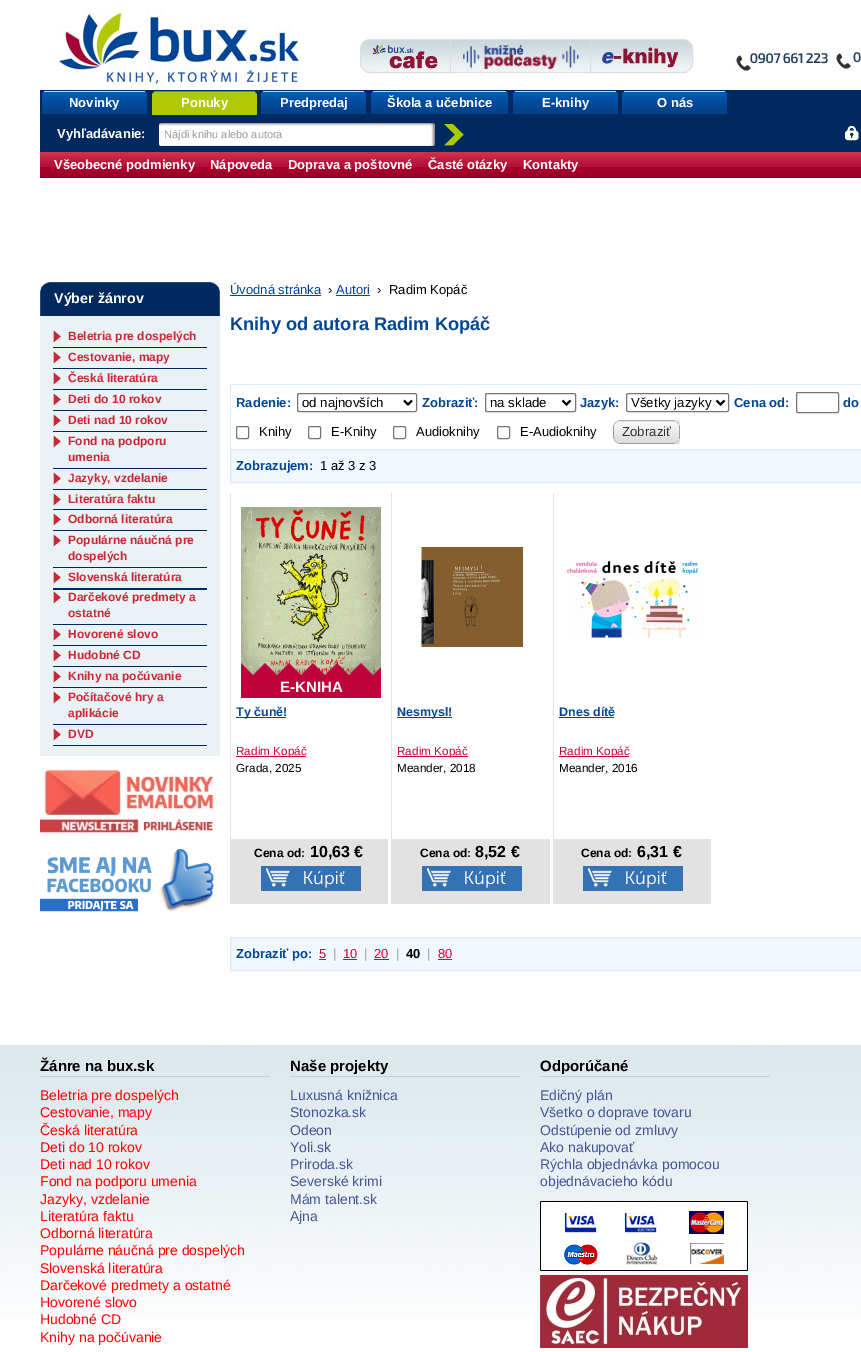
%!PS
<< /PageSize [861 1352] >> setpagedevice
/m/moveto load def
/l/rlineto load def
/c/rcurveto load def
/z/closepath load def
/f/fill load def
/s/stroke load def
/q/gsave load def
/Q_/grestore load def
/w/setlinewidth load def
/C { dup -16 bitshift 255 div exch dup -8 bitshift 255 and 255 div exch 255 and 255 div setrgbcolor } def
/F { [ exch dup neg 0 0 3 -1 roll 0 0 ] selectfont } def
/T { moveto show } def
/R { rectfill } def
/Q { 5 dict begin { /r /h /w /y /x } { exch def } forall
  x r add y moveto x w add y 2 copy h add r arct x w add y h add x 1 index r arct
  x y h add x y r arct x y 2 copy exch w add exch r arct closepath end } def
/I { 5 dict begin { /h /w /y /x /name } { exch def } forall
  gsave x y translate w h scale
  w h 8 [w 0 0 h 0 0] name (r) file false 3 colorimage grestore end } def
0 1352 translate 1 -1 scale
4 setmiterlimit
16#FFFFFF C
0 0 861 1352 R
(1.rgb) 50 10 256 79 I
(2.rgb) 360 40 90 33 I
16#DFDFDF C
370 39.5 m 80.5 0 l 0 33 l -80.5 0 l -5 0 -9.5 -4.5 -9.5 -9.5 c 0 -14 l 0 -5 4.5 -9.5 9.5 -9.5 c z s
(3.rgb) 372 44 66 25 I
(4.rgb) 451 40 139 32 I
451 39 139 1 R
451 72 139 1 R
(5.rgb) 463 45 117 25 I
(6.rgb) 591 40 102 33 I
590.5 39.5 m 92.5 0 l 5 0 9.5 4.5 9.5 9.5 c 0 14 l 0 5 -4.5 9.5 -9.5 9.5 c -92.5 0 l z s
(7.rgb) 602 47 77 21 I
(8.rgb) 734 48 127 24 I
16#002960 C
40 90 821 62 R
(9.rgb) 42 92 105 23 I
16#D1D1D1 C
44 91 101 1 R
/LiberationSans-Bold 13 F
16#FFFFFF C
(Novinky) 69 107 T
16#AFC906 C
156 92 m 97 0 l 2 0 4 1 4 3 c 0 20 l -105 0 l 0 -20 l 0 -2 2 -3 4 -3 c z f
16#4C8AD5 C
154 91 101 1 R
16#FFFFFF C
(Ponuky) 181 107 T
(9.rgb) 261 92 105 23 I
16#D1D1D1 C
263 91 101 1 R
16#FFFFFF C
(Predpredaj) 280 107 T
(10.rgb) 371 92 137 23 I
16#D1D1D1 C
373 91 133 1 R
16#FFFFFF C
(Škola a učebnice) 387 107 T
(9.rgb) 513 92 105 23 I
16#D1D1D1 C
515 91 101 1 R
16#FFFFFF C
(E-knihy) 542 107 T
(9.rgb) 622 92 105 23 I
16#D1D1D1 C
624 91 101 1 R
16#FFFFFF C
(O nás) 657 107 T
(Vyhľadávanie:) 57 138 T
(11.rgb) 159 123 276 23 I
/LiberationSans-Regular 11 F
16#999999 C
(Nájdi knihu alebo autora) 164 138 T
(12.rgb) 444 124 20 22 I
(13.rgb) 845 126 14 15 I
(14.rgb) 40 152 821 26 I
/LiberationSans-Bold 13 F
16#FFFFFF C
(Všeobecné podmienky) 54 169 T
(Nápoveda) 210 169 T
(Doprava a poštovné) 288 169 T
(Časté otázky) 428 169 T
(Kontakty) 523 169 T
(15.rgb) 40 282 171 34 I
(16.rgb) 211 282 9 34 I
/LiberationSans-Bold 14.25 F
(Výber žánrov) 54 303 T
16#EBF2F5 C
40 316 180 440 R
16#002861 C
53 347 154 1 R
(17.rgb) 53 330 8 13 I
/LiberationSans-Bold 12 F
16#C82838 C
(Beletria pre dospelých) 68 340 T
16#002861 C
53 368 154 1 R
(17.rgb) 53 351 8 13 I
16#C82838 C
(Cestovanie, mapy) 68 361 T
16#002861 C
53 389 154 1 R
(17.rgb) 53 372 8 13 I
16#C82838 C
(Česká literatúra) 68 382 T
16#002861 C
53 410 154 1 R
(17.rgb) 53 393 8 13 I
16#C82838 C
(Deti do 10 rokov) 68 403 T
16#002861 C
53 431 154 1 R
(17.rgb) 53 414 8 13 I
16#C82838 C
(Deti nad 10 rokov) 68 424 T
16#002861 C
53 468 154 1 R
(17.rgb) 53 435 8 13 I
16#C82838 C
(Fond na podporu) 68 445 T
(umenia) 68 461 T
16#002861 C
53 489 154 1 R
(17.rgb) 53 472 8 13 I
16#C82838 C
(Jazyky, vzdelanie) 68 482 T
16#002861 C
53 509 154 1 R
(17.rgb) 53 493 8 13 I
16#C82838 C
(Literatúra faktu) 68 503 T
16#002861 C
53 530 154 1 R
(17.rgb) 53 513 8 13 I
16#C82838 C
(Odborná literatúra) 68 523 T
16#002861 C
53 567 154 1 R
(17.rgb) 53 534 8 13 I
16#C82838 C
(Populárne náučná pre) 68 544 T
(dospelých) 68 560 T
(17.rgb) 53 571 8 13 I
(Slovenská literatúra) 68 581 T
16#002861 C
53 588 154 2 R
53 624 154 1 R
(17.rgb) 53 591 8 13 I
16#C82838 C
(Darčekové predmety a) 68 601 T
(ostatné) 68 617 T
16#002861 C
53 645 154 1 R
(17.rgb) 53 628 8 13 I
16#C82838 C
(Hovorené slovo) 68 638 T
16#002861 C
53 666 154 1 R
(17.rgb) 53 649 8 13 I
16#C82838 C
(Hudobné CD) 68 659 T
16#002861 C
53 687 154 1 R
(17.rgb) 53 670 8 13 I
16#C82838 C
(Knihy na počúvanie) 68 680 T
16#002861 C
53 724 154 1 R
(17.rgb) 53 691 8 13 I
16#C82838 C
(Počítačové hry a) 68 701 T
(aplikácie) 68 717 T
16#002861 C
53 745 154 1 R
(17.rgb) 53 728 8 13 I
16#C82838 C
(DVD) 68 738 T
(18.rgb) 40 766 175 69 I
(19.rgb) 40 849 174 63 I
/LiberationSans-Regular 13 F
16#034694 C
(Úvodná stránka) 230 294 T
230 295 91 1 R
16#000000 C
(›) 328 294 T
16#034694 C
(Autori) 336 294 T
336 295 34 1 R
16#000000 C
(›) 377 294 T
(Radim Kopáč) 389 294 T
/LiberationSans-Bold 18.25 F
16#034694 C
(Knihy od autora Radim Kopáč) 230 330 T
16#D9EAFF C
230 384 631 1 R
230 384 1 65 R
/LiberationSans-Bold 13 F
16#034694 C
(Radenie:) 236 407 T
16#767676 C
297.5 393.5 119 18 1.5 Q s
16#000000 C
2 w
404 400.5 m 4 4 l 4 -4 l s
/LiberationSans-Regular 13.25 F
(od najnovších) 302 407 T
/LiberationSans-Bold 13 F
16#034694 C
(Zobraziť:) 422 407 T
16#767676 C
1 w
485.5 393.5 90 18 1.5 Q s
16#000000 C
2 w
562.5 400.5 m 4 4 l 4 -4 l s
/LiberationSans-Regular 13.25 F
(na sklade) 490 407 T
/LiberationSans-Bold 13 F
16#034694 C
(Jazyk:) 580 407 T
16#767676 C
1 w
626.5 393.5 102 18 1.5 Q s
16#000000 C
2 w
716.5 400.5 m 4 4 l 4 -4 l s
/LiberationSans-Regular 13.25 F
(Všetky jazyky) 631 407 T
/LiberationSans-Bold 13 F
16#034694 C
(Cena od:) 734 407 T
16#767676 C
1 w
796.5 392.5 42 20 1.5 Q s
16#034694 C
(do) 843 407 T
16#767676 C
236.5 426.5 12 12 1.5 Q s
/LiberationSans-Regular 13 F
16#000000 C
(Knihy) 259 436 T
16#767676 C
308.5 426.5 12 12 1.5 Q s
16#000000 C
(E-Knihy) 331 436 T
16#767676 C
393.5 426.5 12 12 1.5 Q s
16#000000 C
(Audioknihy) 416 436 T
16#767676 C
497.5 426.5 12 12 1.5 Q s
16#000000 C
(E-Audioknihy) 520 436 T
(20.rgb) 613 420 61 24 I
(21.rgb) 674 420 6 24 I
/LiberationSans-Regular 13.25 F
16#333333 C
(Zobraziť) 622 436 T
16#F0F7FF C
230.5 449.5 m 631 0 l 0 33 l -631 0 l z q f Q_
16#D9EAFF C
s
/LiberationSans-Bold 13 F
16#034694 C
(Zobrazujem:) 236 470 T
/LiberationSans-Regular 13 F
16#000000 C
(1 až 3 z 3) 320 470 T
16#E2E2E2 C
230 493 1 411 R
(22.rgb) 241 507 140 168 I
(23.rgb) 241 663 140 35 I
/LiberationSans-Bold 15 F
16#FFFFFF C
(E-KNIHA) 280 692 T
16#034694 C
236 717 50 1 R
/LiberationSans-Bold 12.5 F
(Ty čuně!) 236 716 T
16#CC0033 C
236 756 70 1 R
/LiberationSans-Regular 11.75 F
(Radim Kopáč) 236 755 T
16#000000 C
(Grada, 2025) 236 772 T
16#E2E2E2 C
231 839 157 65 R
/LiberationSans-Bold 12 F
16#000000 C
(Cena od:) 254 857 T
/LiberationSans-Bold 16 F
(10,63 €) 310 857 T
(24.rgb) 261 866 100 25 I
16#E2E2E2 C
391 493 1 411 R
(25.rgb) 418 547 106 100 I
16#034694 C
397 717 55 1 R
/LiberationSans-Bold 12.5 F
(Nesmysl!) 397 716 T
16#CC0033 C
397 756 71 1 R
/LiberationSans-Regular 11.75 F
(Radim Kopáč) 397 755 T
16#000000 C
(Meander, 2018) 397 772 T
16#E2E2E2 C
392 839 158 65 R
/LiberationSans-Bold 12 F
16#000000 C
(Cena od:) 420 857 T
/LiberationSans-Bold 16 F
(8,52 €) 475 857 T
(24.rgb) 422 866 100 25 I
16#E2E2E2 C
553 493 1 411 R
(26.rgb) 564 559 136 80 I
/LiberationSans-Bold 12.5 F
16#034694 C
(Dnes dítě) 559 716 T
559 717 55 1 R
16#CC0033 C
559 756 70 1 R
/LiberationSans-Regular 11.75 F
(Radim Kopáč) 559 755 T
16#000000 C
(Meander, 2016) 559 772 T
16#E2E2E2 C
554 839 157 65 R
/LiberationSans-Bold 12 F
16#000000 C
(Cena od:) 581 857 T
/LiberationSans-Bold 16 F
(6,31 €) 637 857 T
(24.rgb) 583 866 100 25 I
16#F0F7FF C
230.5 937.5 m 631 0 l 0 33 l -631 0 l z q f Q_
16#D9EAFF C
s
/LiberationSans-Bold 13 F
16#034694 C
(Zobraziť po:) 236 958 T
/LiberationSans-Regular 13 F
16#CC0033 C
(5) 319 958 T
319 959 7 1 R
16#999999 C
(|) 333 958 T
16#CC0033 C
(10) 343 958 T
343 959 14 1 R
16#999999 C
(|) 364 958 T
16#CC0033 C
(20) 374 958 T
374 959 15 1 R
16#999999 C
(|) 396 958 T
/LiberationSans-Bold 13 F
16#000000 C
(40) 406 958 T
/LiberationSans-Regular 13 F
16#999999 C
(|) 427 958 T
16#CC0033 C
(80) 438 958 T
438 959 14 1 R
(27.rgb) 0 1045 861 273 I
16#CCCCCC C
40 1076 230 1 R
/LiberationSans-Bold 15 F
16#000000 C
(Žánre na bux.sk) 40 1071 T
/LiberationSans-Regular 14 F
16#FF0000 C
(Beletria pre dospelých) 40 1100 T
(Cestovanie, mapy) 40 1117 T
(Česká literatúra) 40 1135 T
(Deti do 10 rokov) 40 1152 T
(Deti nad 10 rokov) 40 1169 T
(Fond na podporu umenia) 40 1186 T
(Jazyky, vzdelanie) 40 1204 T
(Literatúra faktu) 40 1221 T
(Odborná literatúra) 40 1238 T
(Populárne náučná pre dospelých) 40 1255 T
(Slovenská literatúra) 40 1273 T
(Darčekové predmety a ostatné) 40 1290 T
(Hovorené slovo) 40 1307 T
(Hudobné CD) 40 1324 T
(Knihy na počúvanie) 40 1342 T
16#CCCCCC C
290 1076 230 1 R
/LiberationSans-Bold 15 F
16#000000 C
(Naše projekty) 290 1071 T
/LiberationSans-Regular 14 F
16#455497 C
(Luxusná knižnica) 290 1100 T
(Stonozka.sk) 290 1117 T
(Odeon) 290 1135 T
(Yoli.sk) 290 1152 T
(Priroda.sk) 290 1169 T
(Severské krimi) 290 1186 T
(Mám talent.sk) 290 1204 T
(Ajna) 290 1221 T
16#CCCCCC C
540 1076 230 1 R
/LiberationSans-Bold 15 F
16#000000 C
(Odporúčané) 540 1071 T
/LiberationSans-Regular 14 F
16#455497 C
(Edičný plán) 540 1100 T
(Všetko o doprave tovaru) 540 1117 T
(Odstúpenie od zmluvy) 540 1135 T
(Ako nakupovať) 540 1152 T
(Rýchla objednávka pomocou) 540 1169 T
(objednávacieho kódu) 540 1186 T
(28.rgb) 540 1201 208 70 I
(29.rgb) 540 1275 208 73 I
showpage
